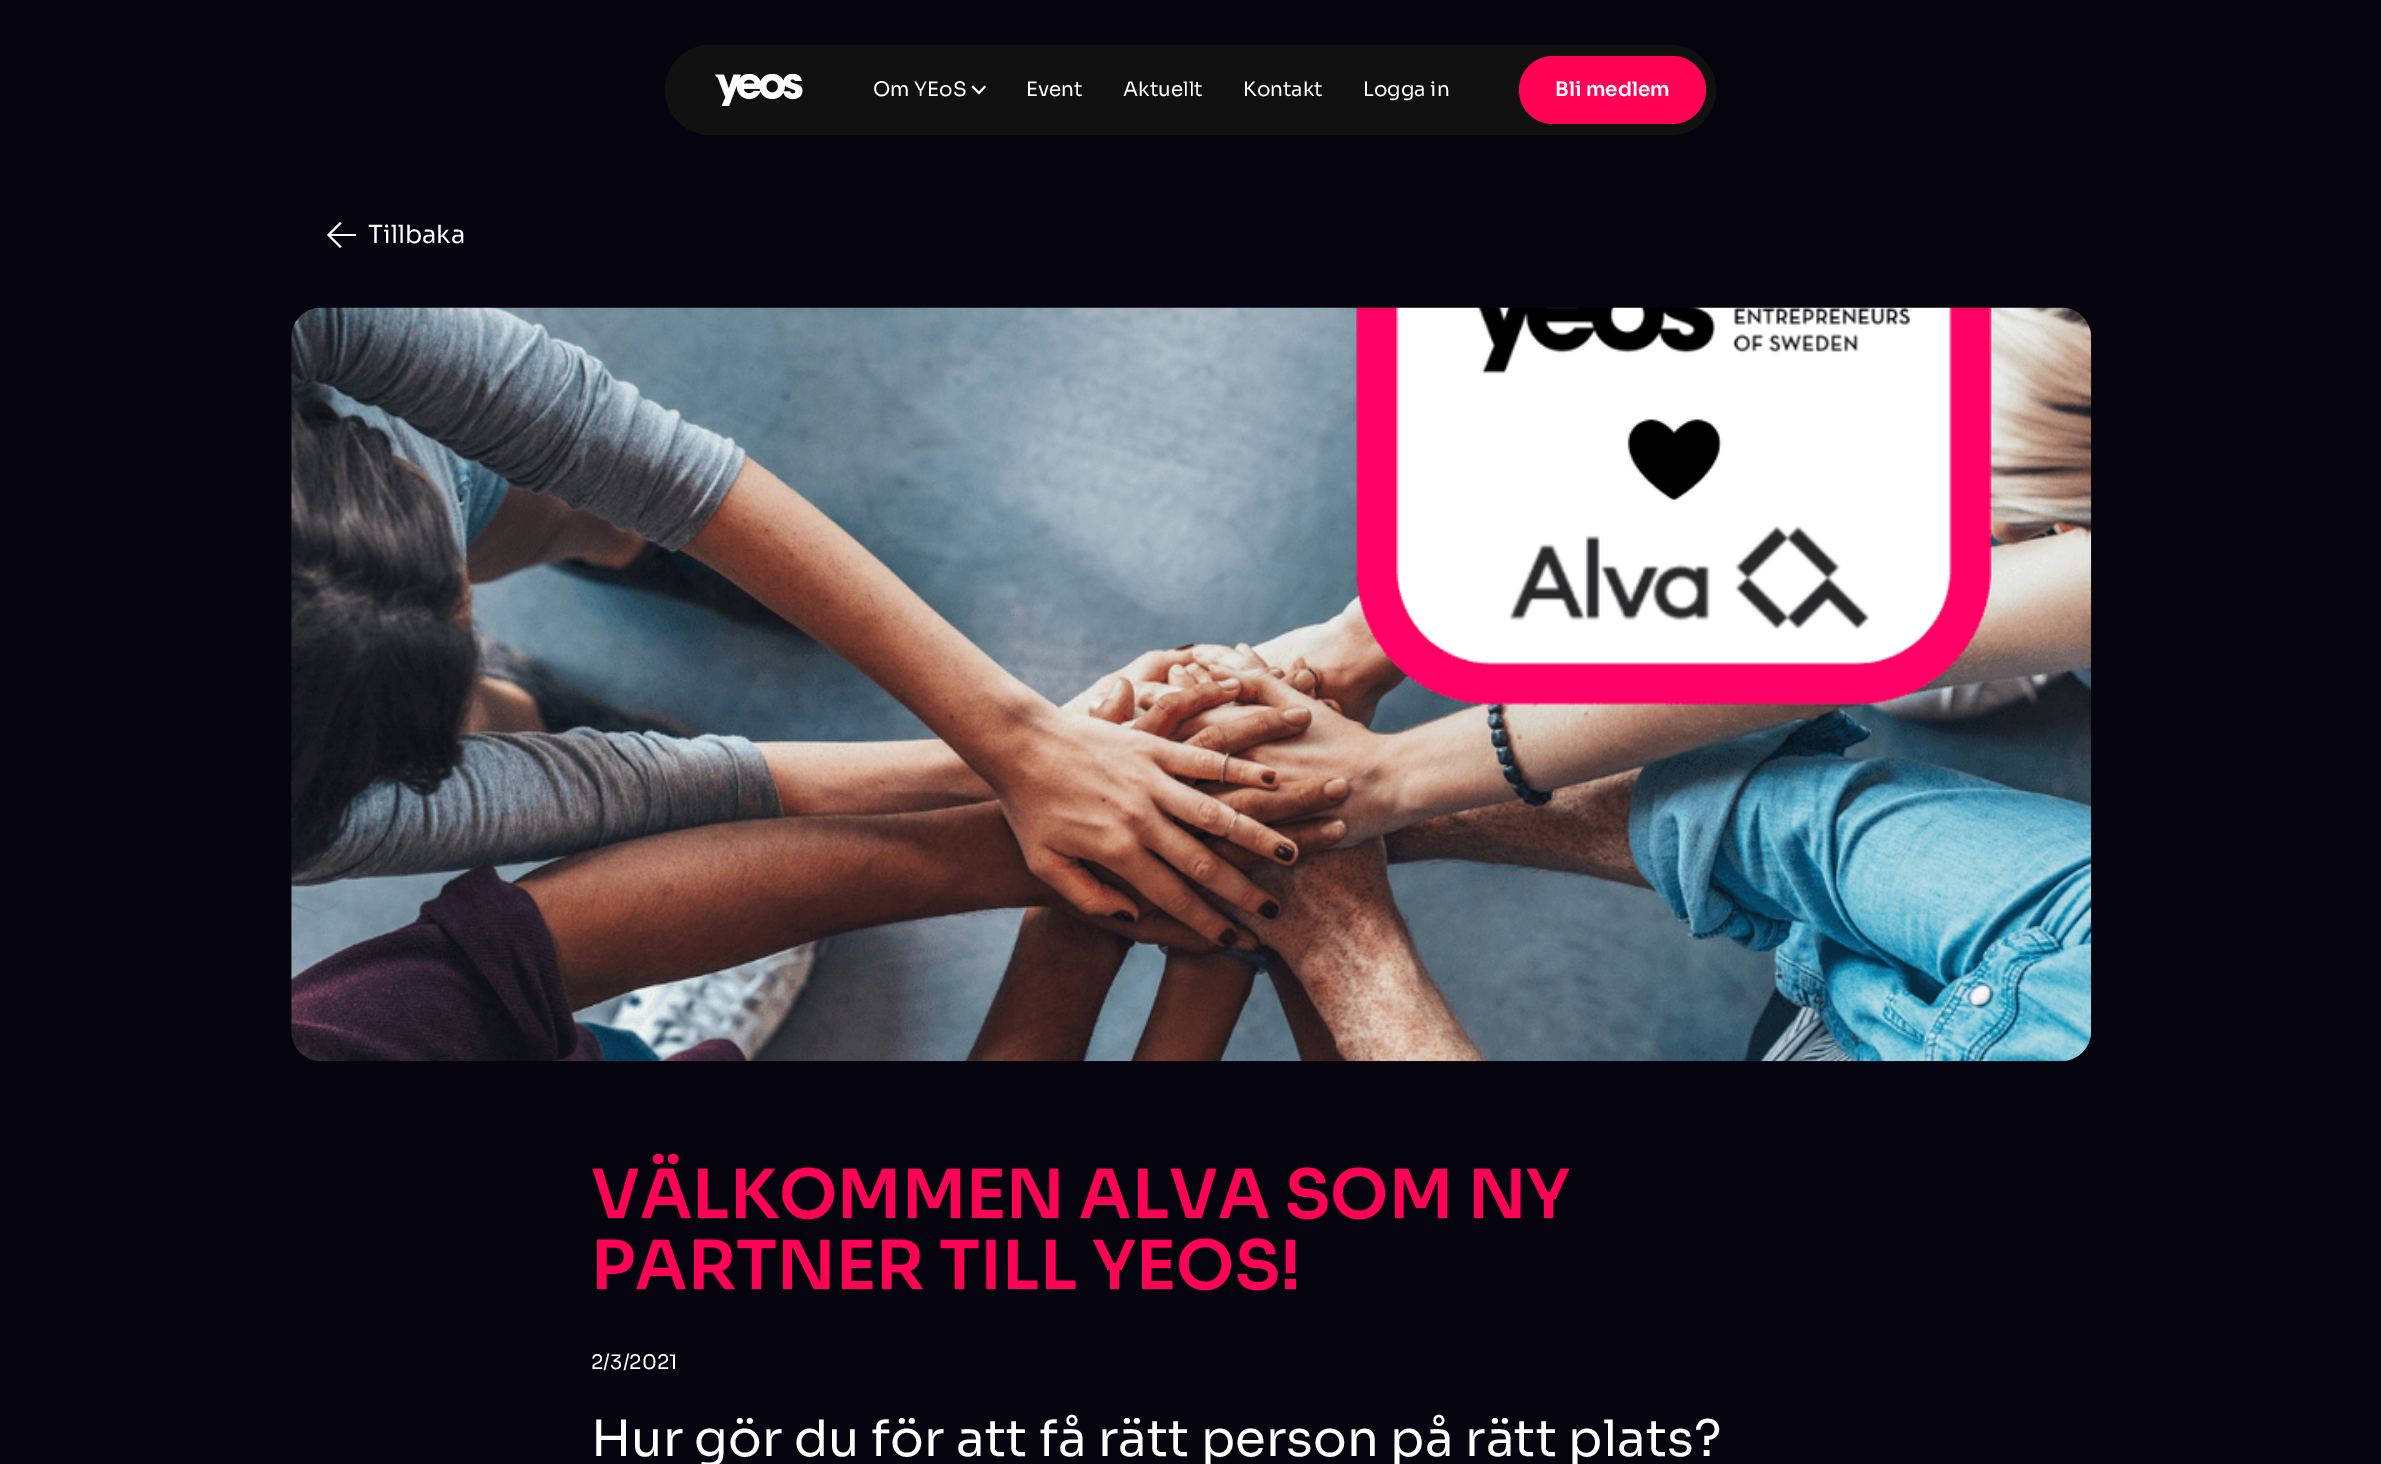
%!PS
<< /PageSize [2381 1464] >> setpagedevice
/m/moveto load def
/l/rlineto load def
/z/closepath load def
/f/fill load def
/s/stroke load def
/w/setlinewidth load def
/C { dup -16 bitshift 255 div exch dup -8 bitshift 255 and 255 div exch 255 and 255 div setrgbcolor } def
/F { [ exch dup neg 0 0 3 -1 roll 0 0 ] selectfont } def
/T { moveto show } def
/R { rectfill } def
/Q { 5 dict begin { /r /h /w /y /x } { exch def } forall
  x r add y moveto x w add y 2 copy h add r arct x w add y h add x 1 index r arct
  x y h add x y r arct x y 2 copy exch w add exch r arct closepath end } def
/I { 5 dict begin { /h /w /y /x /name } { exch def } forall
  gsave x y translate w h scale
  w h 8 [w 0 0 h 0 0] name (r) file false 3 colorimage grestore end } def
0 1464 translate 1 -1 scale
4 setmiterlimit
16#06040E C
0 0 2381 1464 R
16#111111 C
665 45 1051 90 45 Q f
(1.rgb) 715 74 88 32 I
/Sora-Regular 20 F
16#FFFFFF C
(Om YEoS) 873 96 T
1.9 w
2 setlinecap
973 87 m 6 6 l 5.5 -6 l s
(Event) 1026 96 T
(Aktuellt) 1123 96 T
(Kontakt) 1243 96 T
(Logga in) 1363 96 T
16#FF0155 C
1519 56 187 68 34 Q f
/Sora-SemiBold 20 F
16#FFFFFF C
(Bli medlem) 1555 96 T
331 236 m 25 0 l 0 -2 l -25 0 l 10.5 -10.5 l -1.5 -1.5 l -13 13 l 13 13 l 1.5 -1.5 l z eofill
/Sora-Regular 25 F
(Tillbaka) 368 243 T
(2.rgb) 291 307 1801 755 I
/Sora-SemiBold 67.5 F
16#FF0155 C
(VÄLKOMMEN ALVA SOM NY) 591 1218 T
(PARTNER TILL YEOS!) 591 1289 T
/Sora-Regular 20 F
16#FFFFFF C
(2/3/2021) 591 1369 T
/Sora-Regular 50 F
(Hur gör du för att få rätt person på rätt plats?) 591 1456 T
showpage
